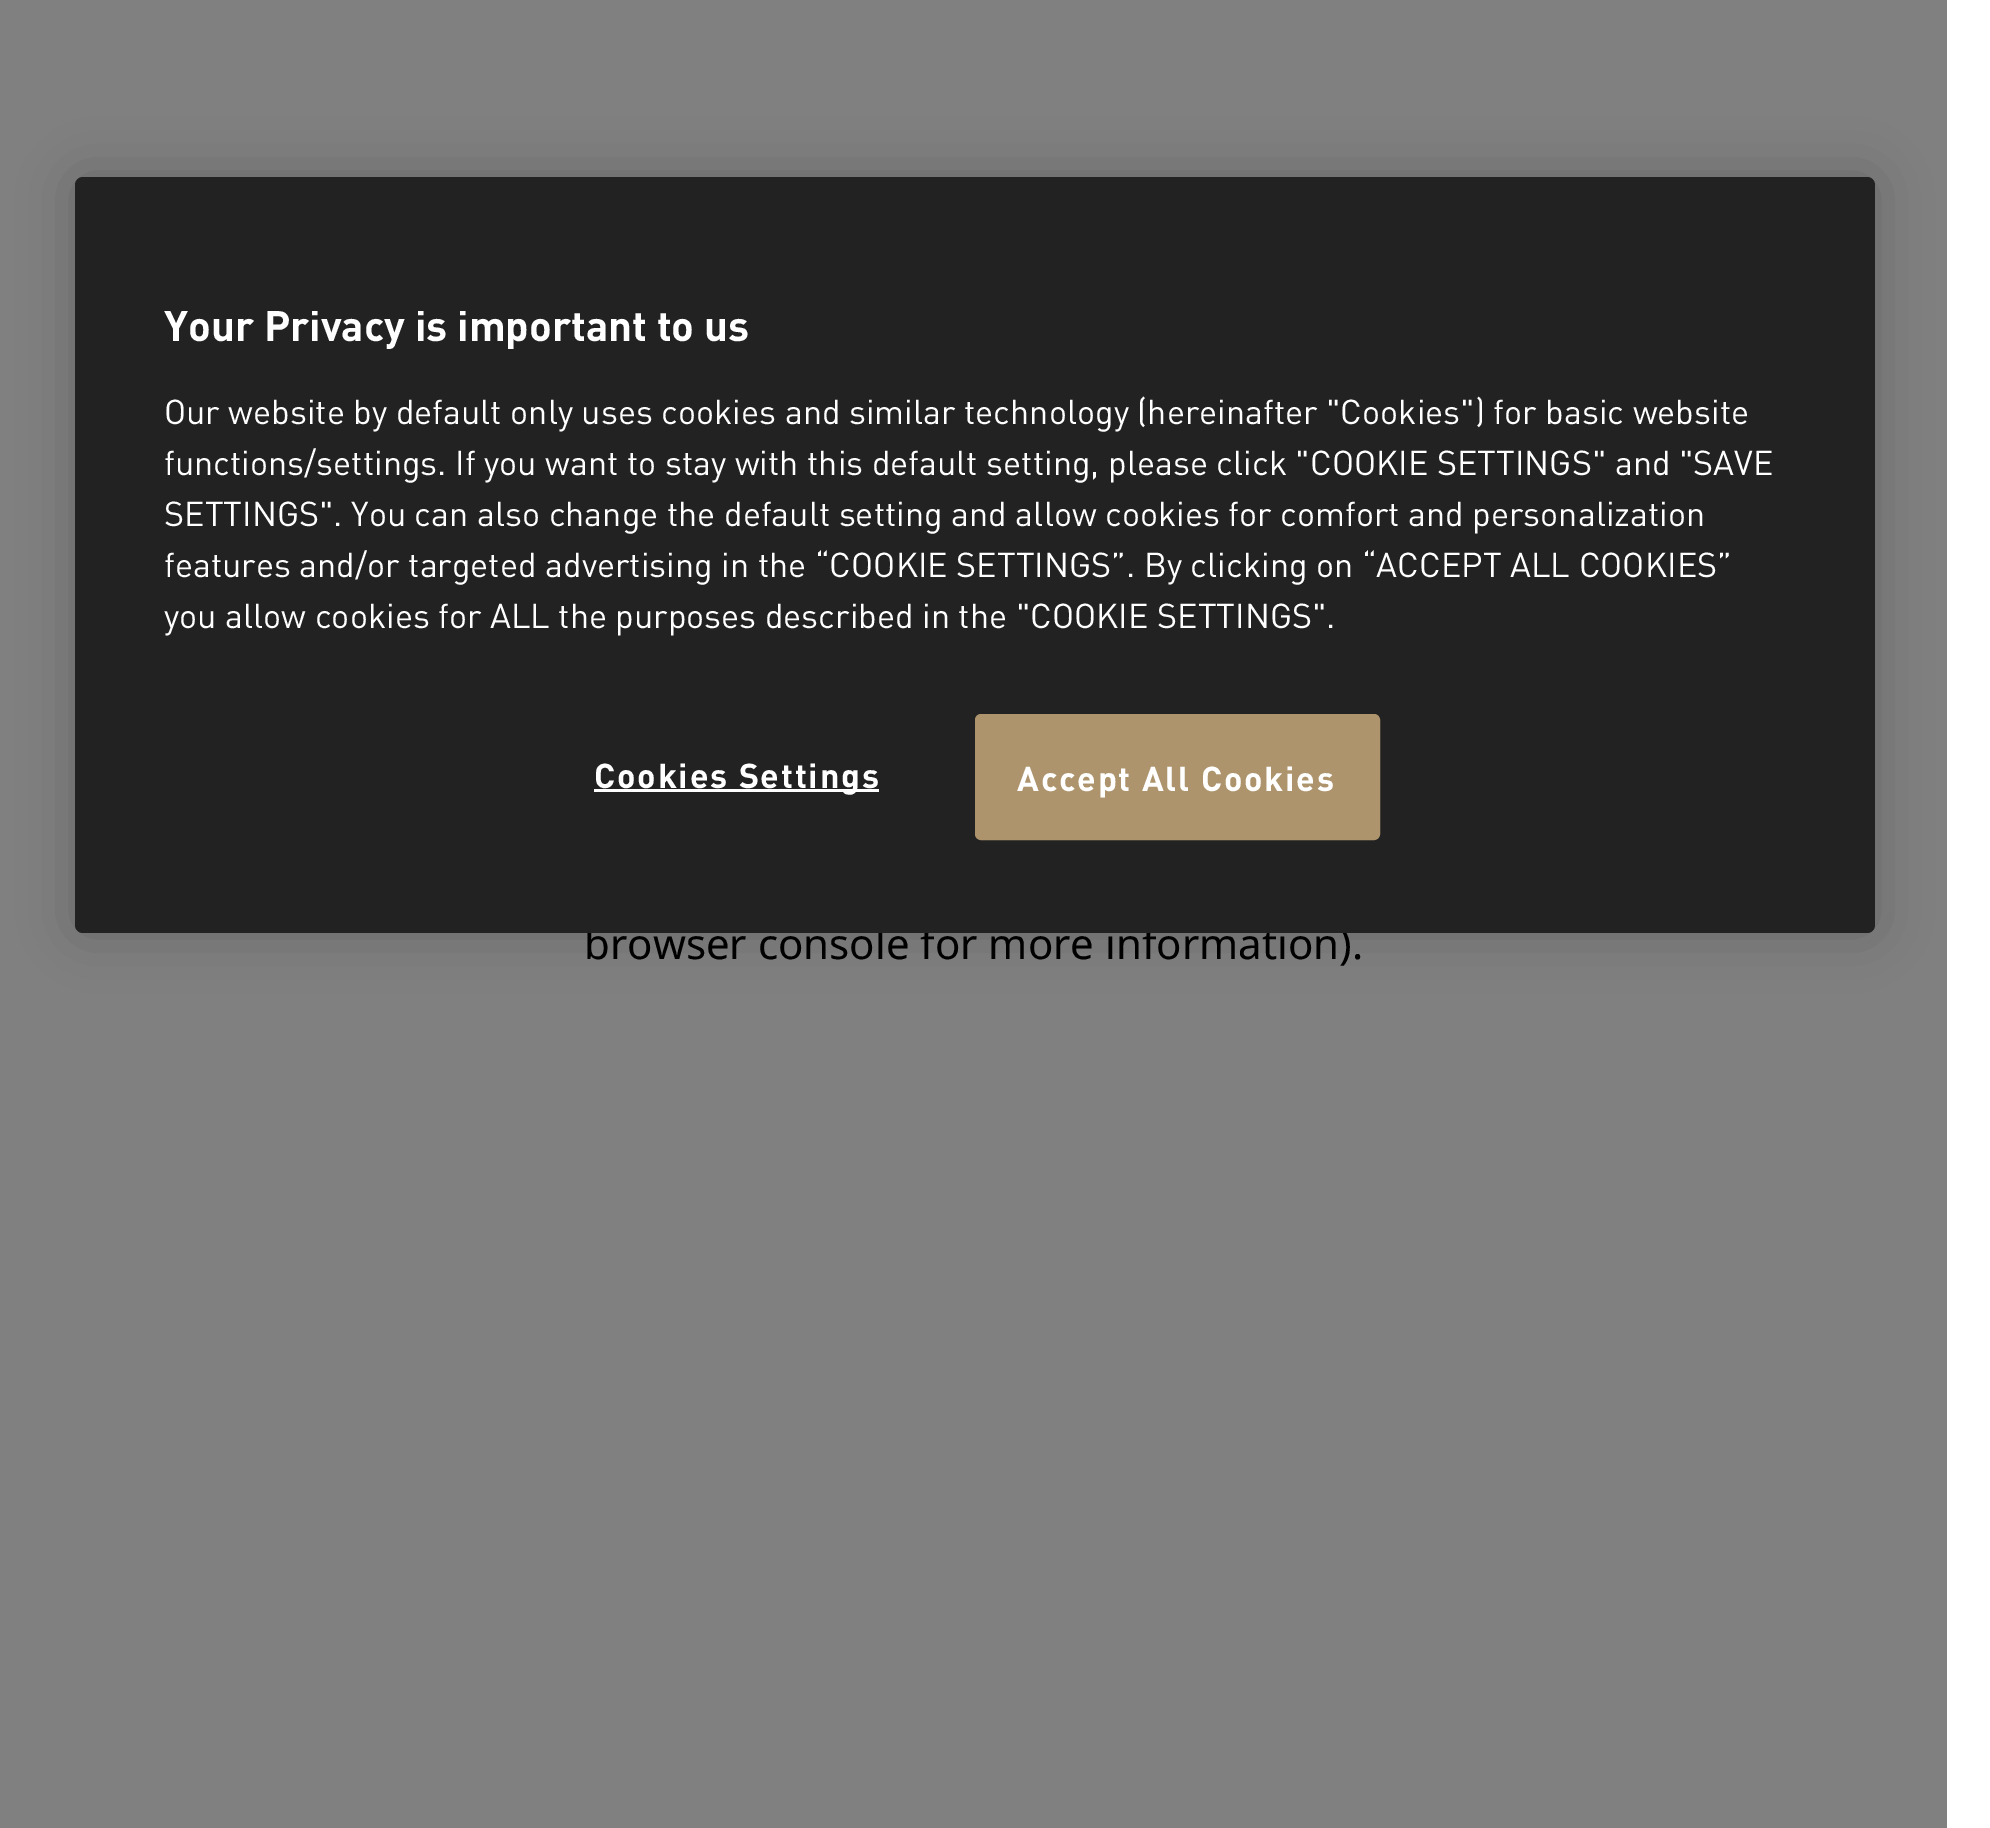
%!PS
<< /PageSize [1990 1828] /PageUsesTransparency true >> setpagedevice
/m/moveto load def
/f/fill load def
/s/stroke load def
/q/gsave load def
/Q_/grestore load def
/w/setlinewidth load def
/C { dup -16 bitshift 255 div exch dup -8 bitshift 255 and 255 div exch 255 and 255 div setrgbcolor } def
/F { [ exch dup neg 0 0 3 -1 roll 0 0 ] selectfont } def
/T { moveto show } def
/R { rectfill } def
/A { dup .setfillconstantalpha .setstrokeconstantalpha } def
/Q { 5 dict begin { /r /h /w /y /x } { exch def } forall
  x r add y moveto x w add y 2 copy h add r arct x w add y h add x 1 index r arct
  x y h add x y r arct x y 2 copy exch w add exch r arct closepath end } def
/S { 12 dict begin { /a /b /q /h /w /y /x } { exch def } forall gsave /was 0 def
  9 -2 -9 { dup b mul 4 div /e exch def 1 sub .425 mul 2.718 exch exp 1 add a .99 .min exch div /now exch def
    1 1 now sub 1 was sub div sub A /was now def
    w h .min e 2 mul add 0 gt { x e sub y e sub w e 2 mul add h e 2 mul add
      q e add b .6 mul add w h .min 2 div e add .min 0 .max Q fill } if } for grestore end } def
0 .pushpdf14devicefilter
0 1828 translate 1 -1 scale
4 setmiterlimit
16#FFFFFF C
0 0 1990 1828 R
16#808080 C
0 0 1947 1828 R
16#000000 C
75 177 1800 756 8 27 .2 S
/NotoSans-Regular 42 F
(browser console for more information\).) 584 959 T
16#222222 C
75 177 1800 756 8 Q f
/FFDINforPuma-Bold 42 F
16#FFFFFF C
(Your Privacy is important to us) 164 341 T
/FFDINforPuma-Regular 34.15 F
(Our website by default only uses cookies and similar technology \(hereinafter "Cookies"\) for basic website) 164 424 T
(functions/settings. If you want to stay with this default setting, please click "COOKIE SETTINGS" and "SAVE) 164 475 T
(SETTINGS". You can also change the default setting and allow cookies for comfort and personalization) 164 526 T
(features and/or targeted advertising in the “COOKIE SETTINGS”. By clicking on “ACCEPT ALL COOKIES”) 164 577 T
(you allow cookies for ALL the purposes described in the "COOKIE SETTINGS".) 164 628 T
594 789 285 3 R
/FFDINforPuma-Bold 34.15 F
594 788 m 1.75 0 (Cookies Settings) ashow
16#AE946D C
976.5 715.5 402 123 4.5 Q q f Q_
3 w
s
16#FFFFFF C
1017 791 m 1.75 0 (Accept All Cookies) ashow
.poppdf14devicefilter showpage
